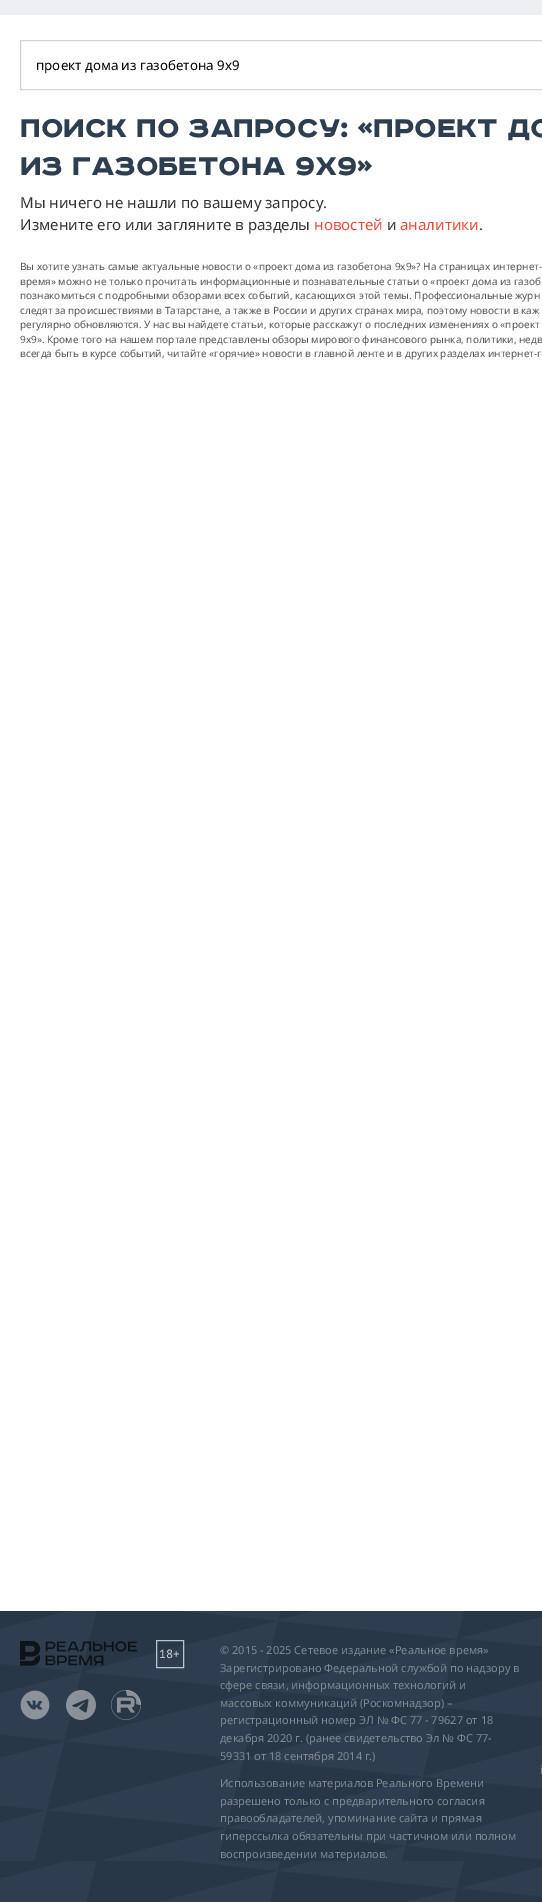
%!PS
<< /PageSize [542 1902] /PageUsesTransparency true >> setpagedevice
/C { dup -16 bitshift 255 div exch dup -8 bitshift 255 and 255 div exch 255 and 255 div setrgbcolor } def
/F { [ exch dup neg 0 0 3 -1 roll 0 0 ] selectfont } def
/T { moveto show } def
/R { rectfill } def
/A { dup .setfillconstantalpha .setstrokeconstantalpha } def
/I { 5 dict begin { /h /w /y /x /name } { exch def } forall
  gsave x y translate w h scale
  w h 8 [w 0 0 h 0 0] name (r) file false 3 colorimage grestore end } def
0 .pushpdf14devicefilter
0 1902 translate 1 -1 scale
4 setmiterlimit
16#FFFFFF C
0 0 542 1902 R
16#EDEFF2 C
0 0 542 15 R
16#D2D3D4 C
20.5 40.5 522 49 rectstroke
/NotoSans-Regular 13.3 F
16#000000 C
(проект дома из газобетона 9х9) 36 70 T
/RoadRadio-Black 32 F
16#2C3E50 C
(Поиск по запросу: «проект до) 20 137 T
(из газобетона 9х9») 20 175 T
/NotoSans-Regular 15 F
16#333333 C
(Мы ничего не нашли по вашему запросу.) 20 208 T
(Измените его или загляните в разделы) 20 230 T
16#E64C3B C
(новостей) 314 230 T
16#333333 C
(и) 387 230 T
16#E64C3B C
(аналитики) 400 230 T
16#333333 C
(.) 479 230 T
/NotoSans-Regular 10 F
16#555555 C
(Вы хотите узнать самые актуальные новости о «проект дома из газобетона 9х9»? На страницах интернет-) 20 270 T
(время» можно не только прочитать информационные и познавательные статьи о «проект дома из газоб) 20 285 T
(познакомиться с подробными обзорами всех событий, касающихся этой темы. Профессиональные журн) 20 299 T
(следят за происшествиями в Татарстане, а также в России и других странах мира, поэтому новости в каж) 20 314 T
(регулярно обновляются. У нас вы найдете статьи, которые расскажут о последних изменениях о «проект) 20 328 T
(9х9». Кроме того на нашем портале представлены обзоры мирового финансового рынка, политики, недв) 20 343 T
(всегда быть в курсе событий, читайте «горячие» новости в главной ленте и в других разделах интернет-г) 20 357 T
16#2E3E50 C
0 1611 542 291 R
(1.rgb) 0 1611 542 291 I
(2.rgb) 20 1641 117 25 I
0.7 A
16#FFFFFF C
156.5 1640.5 27 27 rectstroke
/PTSansCaption-Regular 12 F
1 A
16#C0C5CA C
(18+) 159 1658 T
(3.rgb) 20 1690 30 30 I
(4.rgb) 66 1690 30 30 I
(5.rgb) 111 1690 30 30 I
/NotoSans-Regular 11 F
16#7F8893 C
(© 2015 - 2025 Сетевое издание «Реальное время») 220 1654 T
(Зарегистрировано Федеральной службой по надзору в) 220 1672 T
(сфере связи, информационных технологий и) 220 1689 T
(массовых коммуникаций \(Роскомнадзор\) –) 220 1707 T
(регистрационный номер ЭЛ) 220 1724 T
/LiberationSans-Regular 11 F
(№) 377 1724 T
/NotoSans-Regular 11 F
(ФС 77 - 79627 от 18) 391 1724 T
(декабря 2020 г. \(ранее свидетельство Эл) 220 1742 T
/LiberationSans-Regular 11 F
(№) 442 1742 T
/NotoSans-Regular 11 F
(ФС 77-) 457 1742 T
(59331 от 18 сентября 2014 г.\)) 220 1760 T
(Использование материалов Реального Времени) 220 1787 T
(разрешено только с предварительного согласия) 220 1805 T
(правообладателей, упоминание сайта и прямая) 220 1822 T
(гиперссылка обязательны при частичном или полном) 220 1840 T
(воспроизведении материалов.) 220 1858 T
/NotoSans-Regular 12 F
(i) 540 1774 T
.poppdf14devicefilter showpage
